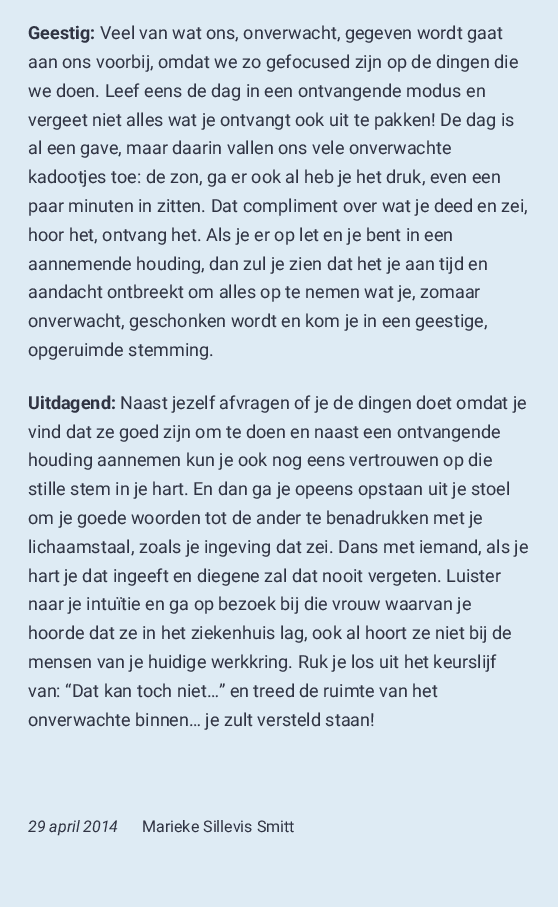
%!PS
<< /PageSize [558 907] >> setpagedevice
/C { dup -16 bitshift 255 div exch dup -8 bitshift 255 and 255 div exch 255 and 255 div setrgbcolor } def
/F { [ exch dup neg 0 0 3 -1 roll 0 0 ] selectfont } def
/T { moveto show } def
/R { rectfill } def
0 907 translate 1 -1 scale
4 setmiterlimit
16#DEEBF4 C
0 0 558 907 R
/Roboto-Bold 18 F
16#303443 C
(Geestig:) 28 39 T
/Roboto-Regular 18 F
(Veel van wat ons, onverwacht, gegeven wordt gaat) 100 39 T
(aan ons voorbij, omdat we zo gefocused zijn op de dingen die) 28 68 T
(we doen. Leef eens de dag in een ontvangende modus en) 28 97 T
(vergeet niet alles wat je ontvangt ook uit te pakken! De dag is) 28 126 T
(al een gave, maar daarin vallen ons vele onverwachte) 28 154 T
(kadootjes toe: de zon, ga er ook al heb je het druk, even een) 28 183 T
(paar minuten in zitten. Dat compliment over wat je deed en zei,) 28 212 T
(hoor het, ontvang het. Als je er op let en je bent in een) 28 241 T
(aannemende houding, dan zul je zien dat het je aan tijd en) 28 270 T
(aandacht ontbreekt om alles op te nemen wat je, zomaar) 28 298 T
(onverwacht, geschonken wordt en kom je in een geestige,) 28 327 T
(opgeruimde stemming.) 28 356 T
/Roboto-Bold 18 F
(Uitdagend:) 28 409 T
/Roboto-Regular 18 F
(Naast jezelf afvragen of je de dingen doet omdat je) 120 409 T
(vind dat ze goed zijn om te doen en naast een ontvangende) 28 438 T
(houding aannemen kun je ook nog eens vertrouwen op die) 28 466 T
(stille stem in je hart. En dan ga je opeens opstaan uit je stoel) 28 495 T
(om je goede woorden tot de ander te benadrukken met je) 28 524 T
(lichaamstaal, zoals je ingeving dat zei. Dans met iemand, als je) 28 553 T
(hart je dat ingeeft en diegene zal dat nooit vergeten. Luister) 28 582 T
(naar je intuïtie en ga op bezoek bij die vrouw waarvan je) 28 610 T
(hoorde dat ze in het ziekenhuis lag, ook al hoort ze niet bij de) 28 639 T
(mensen van je huidige werkkring. Ruk je los uit het keurslijf) 28 668 T
(van: “Dat kan toch niet…” en treed de ruimte van het) 28 697 T
(onverwachte binnen… je zult versteld staan!) 28 726 T
/Roboto-Italic 16 F
(29 april 2014) 28 832 T
/Roboto-Regular 16 F
(Marieke Sillevis Smitt) 142 832 T
showpage
